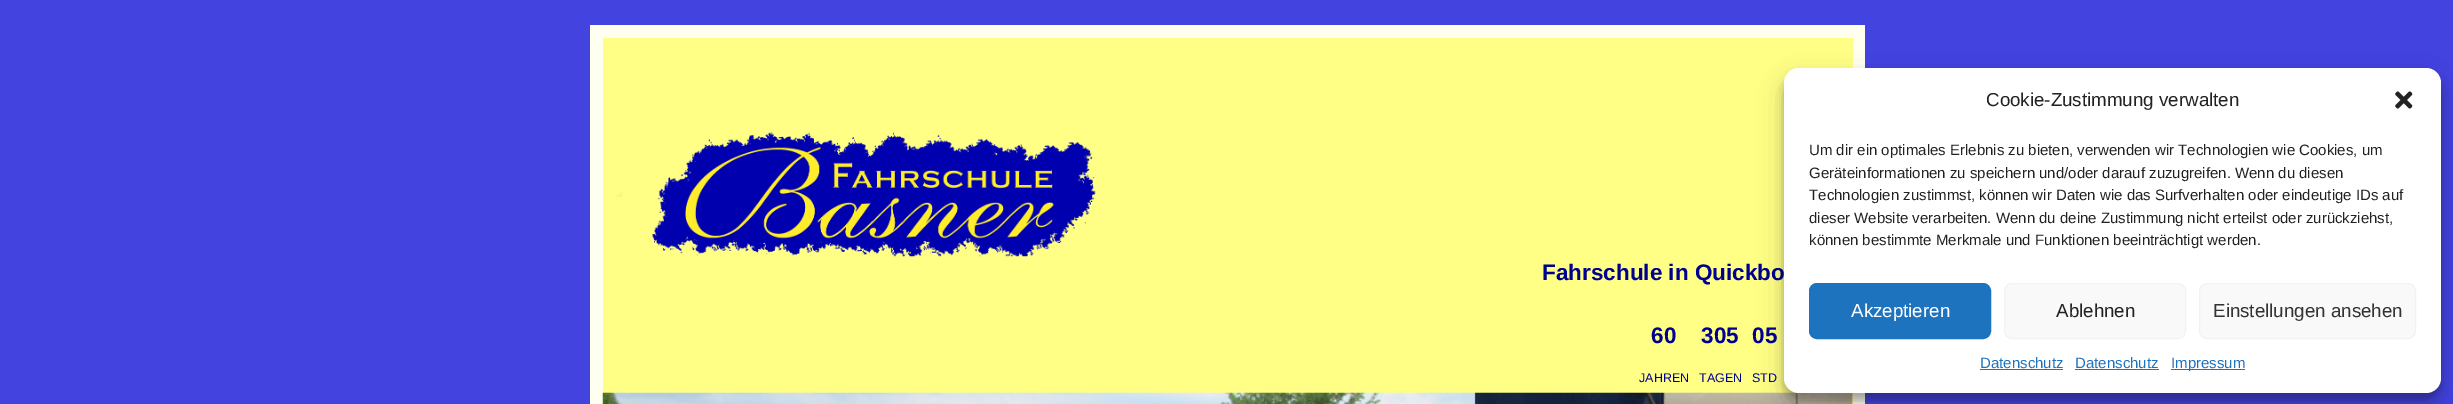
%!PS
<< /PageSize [2453 404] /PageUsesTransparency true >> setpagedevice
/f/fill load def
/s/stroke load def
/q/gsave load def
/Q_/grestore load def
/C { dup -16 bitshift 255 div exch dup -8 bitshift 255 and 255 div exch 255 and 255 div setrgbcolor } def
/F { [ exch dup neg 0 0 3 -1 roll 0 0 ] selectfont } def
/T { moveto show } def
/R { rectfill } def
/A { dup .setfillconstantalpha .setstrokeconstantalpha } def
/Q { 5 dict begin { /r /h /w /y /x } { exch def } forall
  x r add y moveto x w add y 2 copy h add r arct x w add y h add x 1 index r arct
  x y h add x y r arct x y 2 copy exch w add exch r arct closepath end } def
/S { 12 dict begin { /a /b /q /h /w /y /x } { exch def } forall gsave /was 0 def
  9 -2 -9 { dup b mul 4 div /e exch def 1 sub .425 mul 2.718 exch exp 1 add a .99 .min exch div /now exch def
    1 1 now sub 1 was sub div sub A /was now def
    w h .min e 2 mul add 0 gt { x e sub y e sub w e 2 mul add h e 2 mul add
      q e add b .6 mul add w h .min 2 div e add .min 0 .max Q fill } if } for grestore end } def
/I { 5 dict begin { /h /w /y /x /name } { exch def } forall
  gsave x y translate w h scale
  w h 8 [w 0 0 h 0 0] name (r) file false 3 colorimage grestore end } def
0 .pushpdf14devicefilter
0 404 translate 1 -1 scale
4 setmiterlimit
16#4343E0 C
0 0 2453 404 R
16#FFFFF0 C
590 25 1275 379 R
16#FFFF85 C
603 38 1250 366 R
(1.rgb) 616 132 480 125 I
/LiberationSans-Bold 22.5 F
16#000090 C
(Fahrschule in Quickbo) 1542 280 T
(60) 1651 343 T
(305) 1701 343 T
(05) 1752 343 T
/LiberationSans-Regular 12.5 F
(JAHREN) 1639 382 T
(TAGEN) 1699 382 T
(STD) 1752 382 T
(2.rgb) 602 392 1251 12 I
16#000000 C
1784 75 657 325 15 4 .23 S
1784 80 657 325 15 12.5 .19 S
16#FFFFFF C
1784 68 657 325 15 Q f
/LiberationSans-Regular 18.75 F
16#222222 C
(Cookie-Zustimmung verwalten) 1986 106 T
(3.rgb) 2395 91 18 18 I
/LiberationSans-Regular 15 F
(Um dir ein optimales Erlebnis zu bieten, verwenden wir Technologien wie Cookies, um) 1809 155 T
(Geräteinformationen zu speichern und/oder darauf zuzugreifen. Wenn du diesen) 1809 178 T
(Technologien zustimmst, können wir Daten wie das Surfverhalten oder eindeutige IDs auf) 1809 200 T
(dieser Website verarbeiten. Wenn du deine Zustimmung nicht erteilst oder zurückziehst,) 1809 223 T
(können bestimmte Merkmale und Funktionen beeinträchtigt werden.) 1809 245 T
16#1E73BE C
1809.5 283.5 181 55 7.5 Q q f Q_
s
/LiberationSans-Regular 18.75 F
16#FFFFFF C
(Akzeptieren) 1851 317 T
16#F9F9F9 C
2004.5 283.5 181 55 7.5 Q q f Q_
16#F2F2F2 C
s
16#222222 C
(Ablehnen) 2056 317 T
16#F9F9F9 C
2199.5 283.5 216 55 7.5 Q q f Q_
16#F2F2F2 C
s
16#333333 C
(Einstellungen ansehen) 2213 317 T
/LiberationSans-Regular 15 F
16#1E73BE C
(Datenschutz) 1980 368 T
1980 369 83 1 R
(Datenschutz) 2075 368 T
2075 369 84 1 R
2171 369 74 1 R
(Impressum) 2171 368 T
.poppdf14devicefilter showpage
